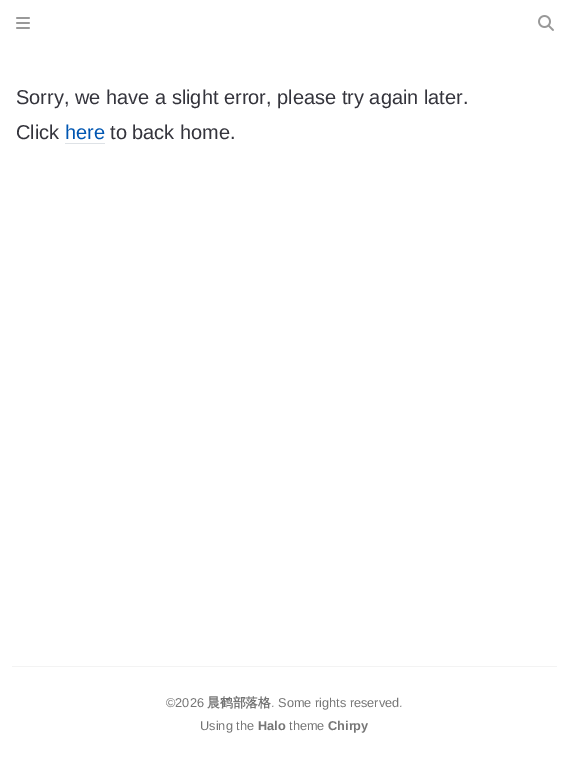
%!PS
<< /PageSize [569 762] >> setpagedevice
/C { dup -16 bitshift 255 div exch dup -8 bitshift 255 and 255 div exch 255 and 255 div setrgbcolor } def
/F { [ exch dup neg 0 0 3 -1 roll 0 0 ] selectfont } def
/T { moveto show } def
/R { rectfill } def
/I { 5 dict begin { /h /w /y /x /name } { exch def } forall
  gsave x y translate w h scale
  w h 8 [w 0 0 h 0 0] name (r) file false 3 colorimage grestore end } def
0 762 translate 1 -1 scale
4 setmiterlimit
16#FFFFFF C
0 0 569 762 R
(1.rgb) 16 17 14 12 I
(2.rgb) 538 15 16 16 I
/LiberationSans-Regular 20 F
16#34343C C
(Sorry, we have a slight error, please try again later.) 16 104 T
(Click) 16 139 T
16#0056B2 C
(here) 65 139 T
16#DEE2E6 C
65 143 40 1 R
16#34343C C
(to back home.) 110 139 T
16#F3F3F3 C
12 666 545 1 R
/LiberationSans-Regular 12.75 F
16#757575 C
(©2026) 166 707 T
/WenQuanYiZenHei-Bold 12.75 F
(晨鹤部落格) 207 707 T
/LiberationSans-Regular 12.75 F
(. Some rights reserved.) 271 707 T
(Using the) 200 730 T
/LiberationSans-Bold 12.75 F
(Halo) 258 730 T
/LiberationSans-Regular 12.75 F
(theme) 289 730 T
/LiberationSans-Bold 12.75 F
(Chirpy) 328 730 T
showpage
